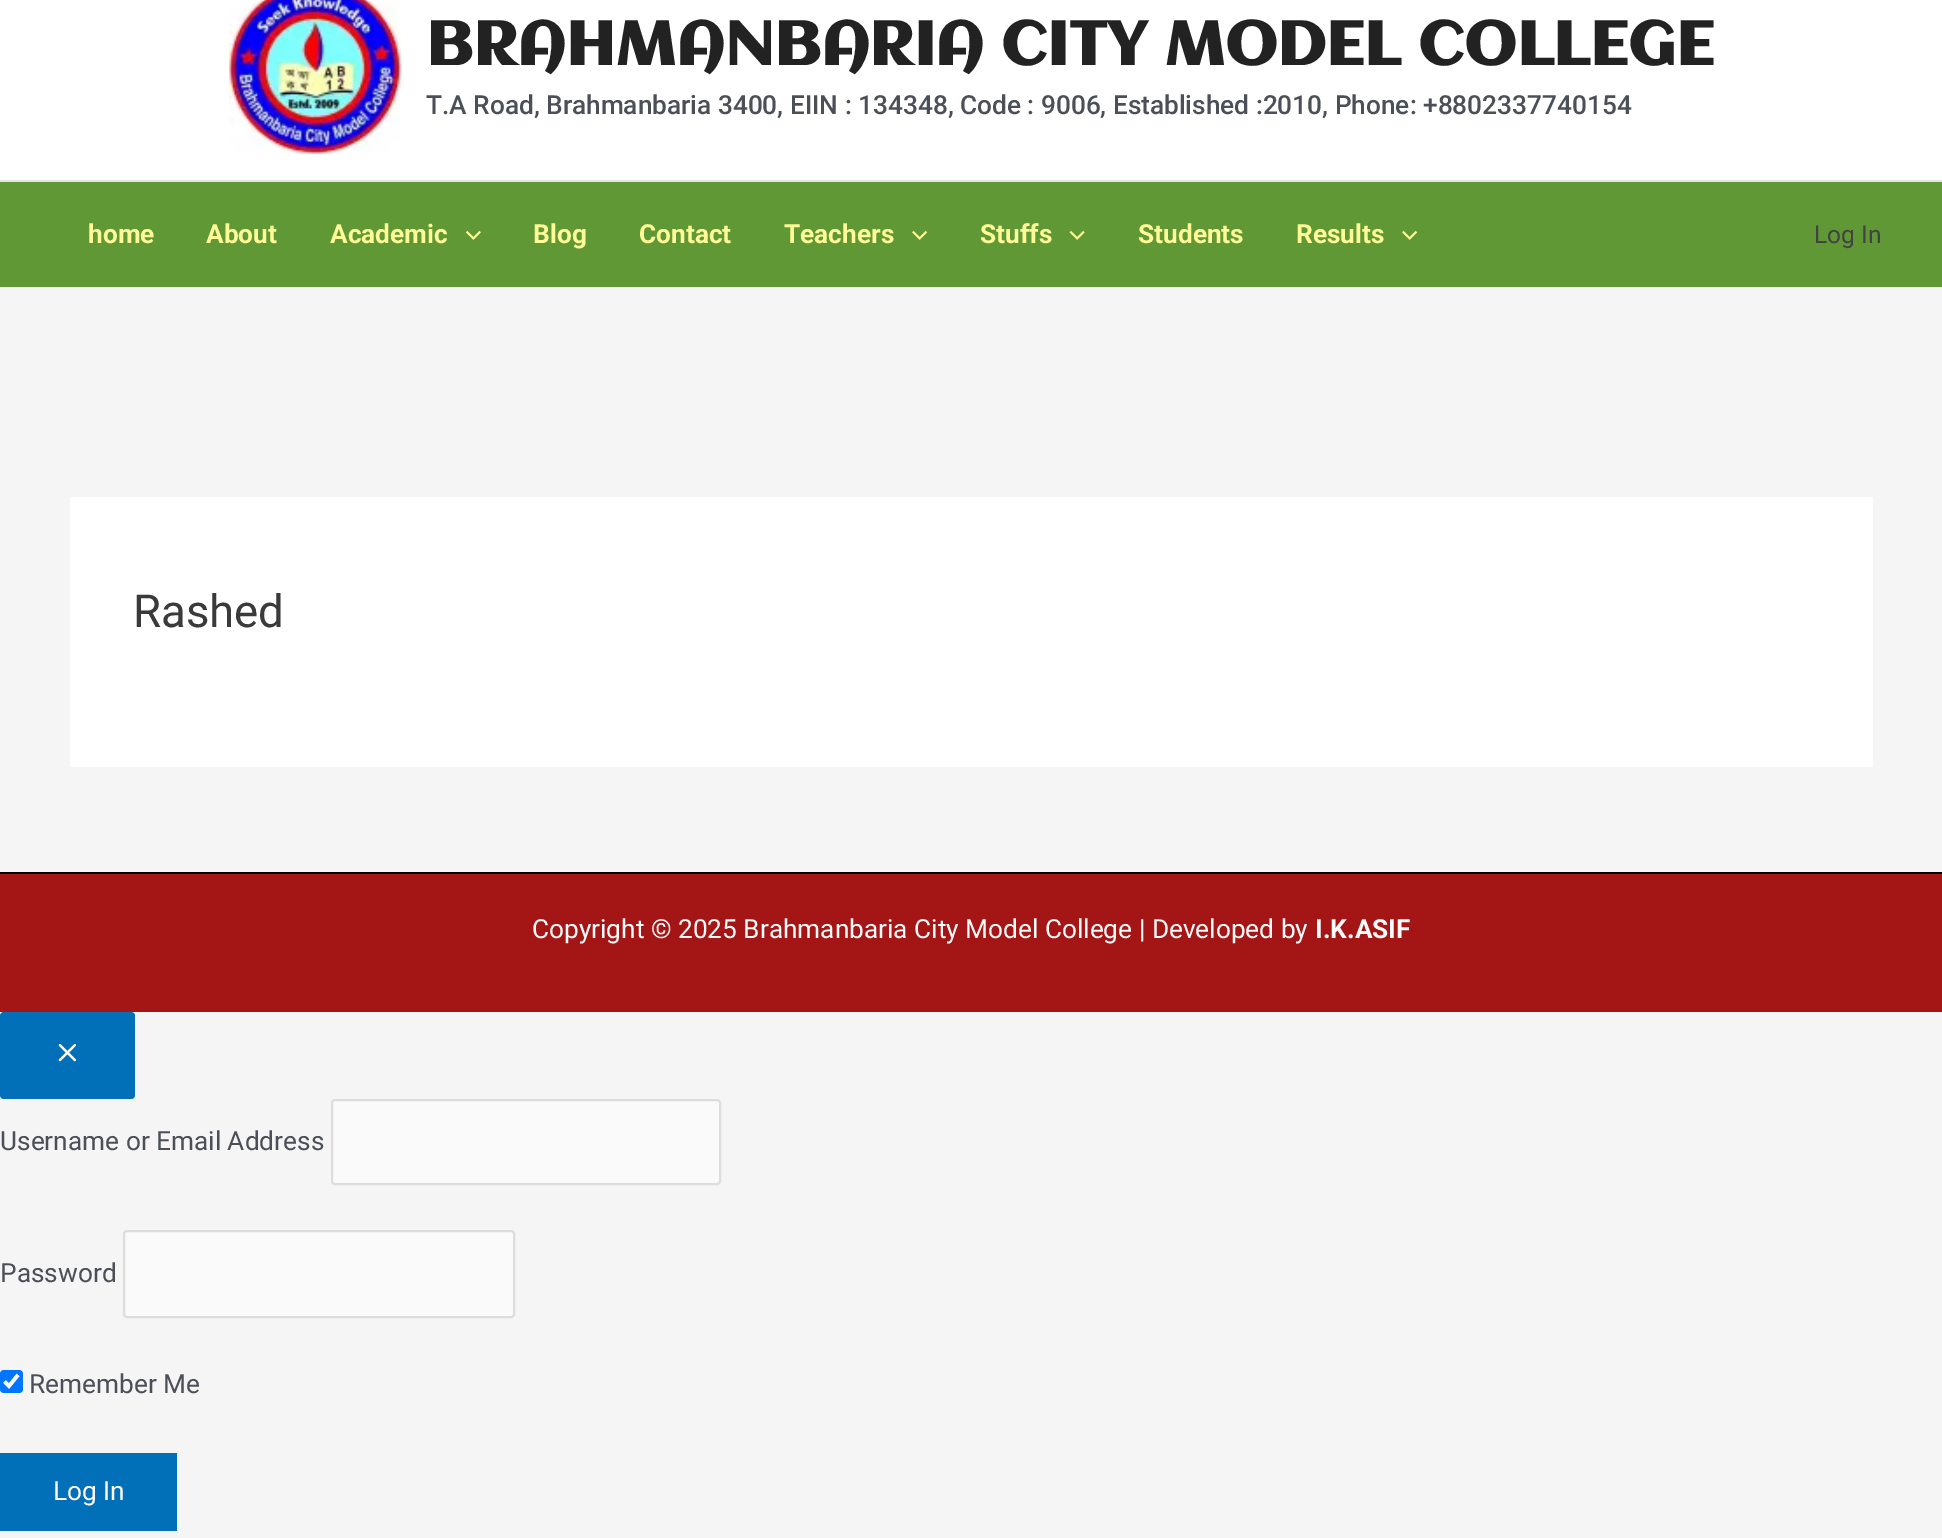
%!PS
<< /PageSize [1942 1538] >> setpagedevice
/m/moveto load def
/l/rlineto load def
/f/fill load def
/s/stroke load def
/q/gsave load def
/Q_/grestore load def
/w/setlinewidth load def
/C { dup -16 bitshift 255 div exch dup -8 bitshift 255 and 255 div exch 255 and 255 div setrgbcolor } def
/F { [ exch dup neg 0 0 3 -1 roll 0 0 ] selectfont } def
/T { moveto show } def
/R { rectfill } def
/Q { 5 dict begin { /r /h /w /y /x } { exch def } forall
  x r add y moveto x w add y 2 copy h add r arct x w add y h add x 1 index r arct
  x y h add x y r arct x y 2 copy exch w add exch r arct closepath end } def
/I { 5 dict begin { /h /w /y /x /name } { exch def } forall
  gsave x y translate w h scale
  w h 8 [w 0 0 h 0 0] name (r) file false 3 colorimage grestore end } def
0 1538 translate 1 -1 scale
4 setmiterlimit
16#F5F5F5 C
0 0 1942 1538 R
16#FFFFFF C
0 0 1942 180 R
16#E5E5E5 C
0 180 1942 2 R
(1.rgb) 229 0 172 154 I
/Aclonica-Bold 61.25 F
16#222222 C
(BRAHMANBARIA CITY MODEL COLLEGE) 426 65 T
/Roboto-Medium 26.25 F
16#4B4F58 C
(T.A Road, Brahmanbaria 3400, EIIN : 134348, Code : 9006, Established :2010, Phone: +8802337740154) 426 114 T
16#619836 C
0 182 1942 105 R
/Roboto-Bold 26.25 F
16#FFFC97 C
(home) 88 243 T
(About) 206 243 T
(Academic) 330 243 T
(2.rgb) 466 230 15 10 I
(Blog) 533 243 T
(Contact) 639 243 T
(Teachers) 784 243 T
(3.rgb) 912 230 16 10 I
(Stuffs) 980 243 T
(4.rgb) 1069 230 16 10 I
(Students) 1138 243 T
(Results) 1296 243 T
(3.rgb) 1402 230 16 10 I
/Roboto-Regular 24.5 F
16#424242 C
(Log In) 1814 243 T
16#FFFFFF C
70 497 1803 270 R
/Roboto-Regular 45.5 F
16#3A3A3A C
(Rashed) 133 627 T
16#A41616 C
0 874 1942 138 R
16#000000 C
0 872 1942 2 R
/Roboto-Regular 26.25 F
16#FFFBFB C
(Copyright © 2025 Brahmanbaria City Model College | Developed by) 532 938 T
/Roboto-Bold 26.25 F
(I.K.ASIF) 1315 938 T
16#0170B9 C
0 1012 135 87 4 Q f
(5.rgb) 58 1044 18 18 I
/Roboto-Regular 26.25 F
16#4B4F58 C
(Username or Email Address) 0 1150 T
16#FAFAFA C
332 1100 388 84 3 Q q f Q_
16#DDDDDD C
2 w
s
16#4B4F58 C
(Password) 0 1282 T
16#FAFAFA C
124 1231 390 86 3 Q q f Q_
16#DDDDDD C
s
16#0075FF C
0 1370 23 23 4 Q f
16#FFFFFF C
3.6 w
4.5 1381.5 m 4.5 4.5 l 9 -11 l s
16#4B4F58 C
(Remember Me) 29 1393 T
16#0170B9 C
0 1453 177 78 R
16#FFFBFB C
(Log In) 53 1500 T
showpage
